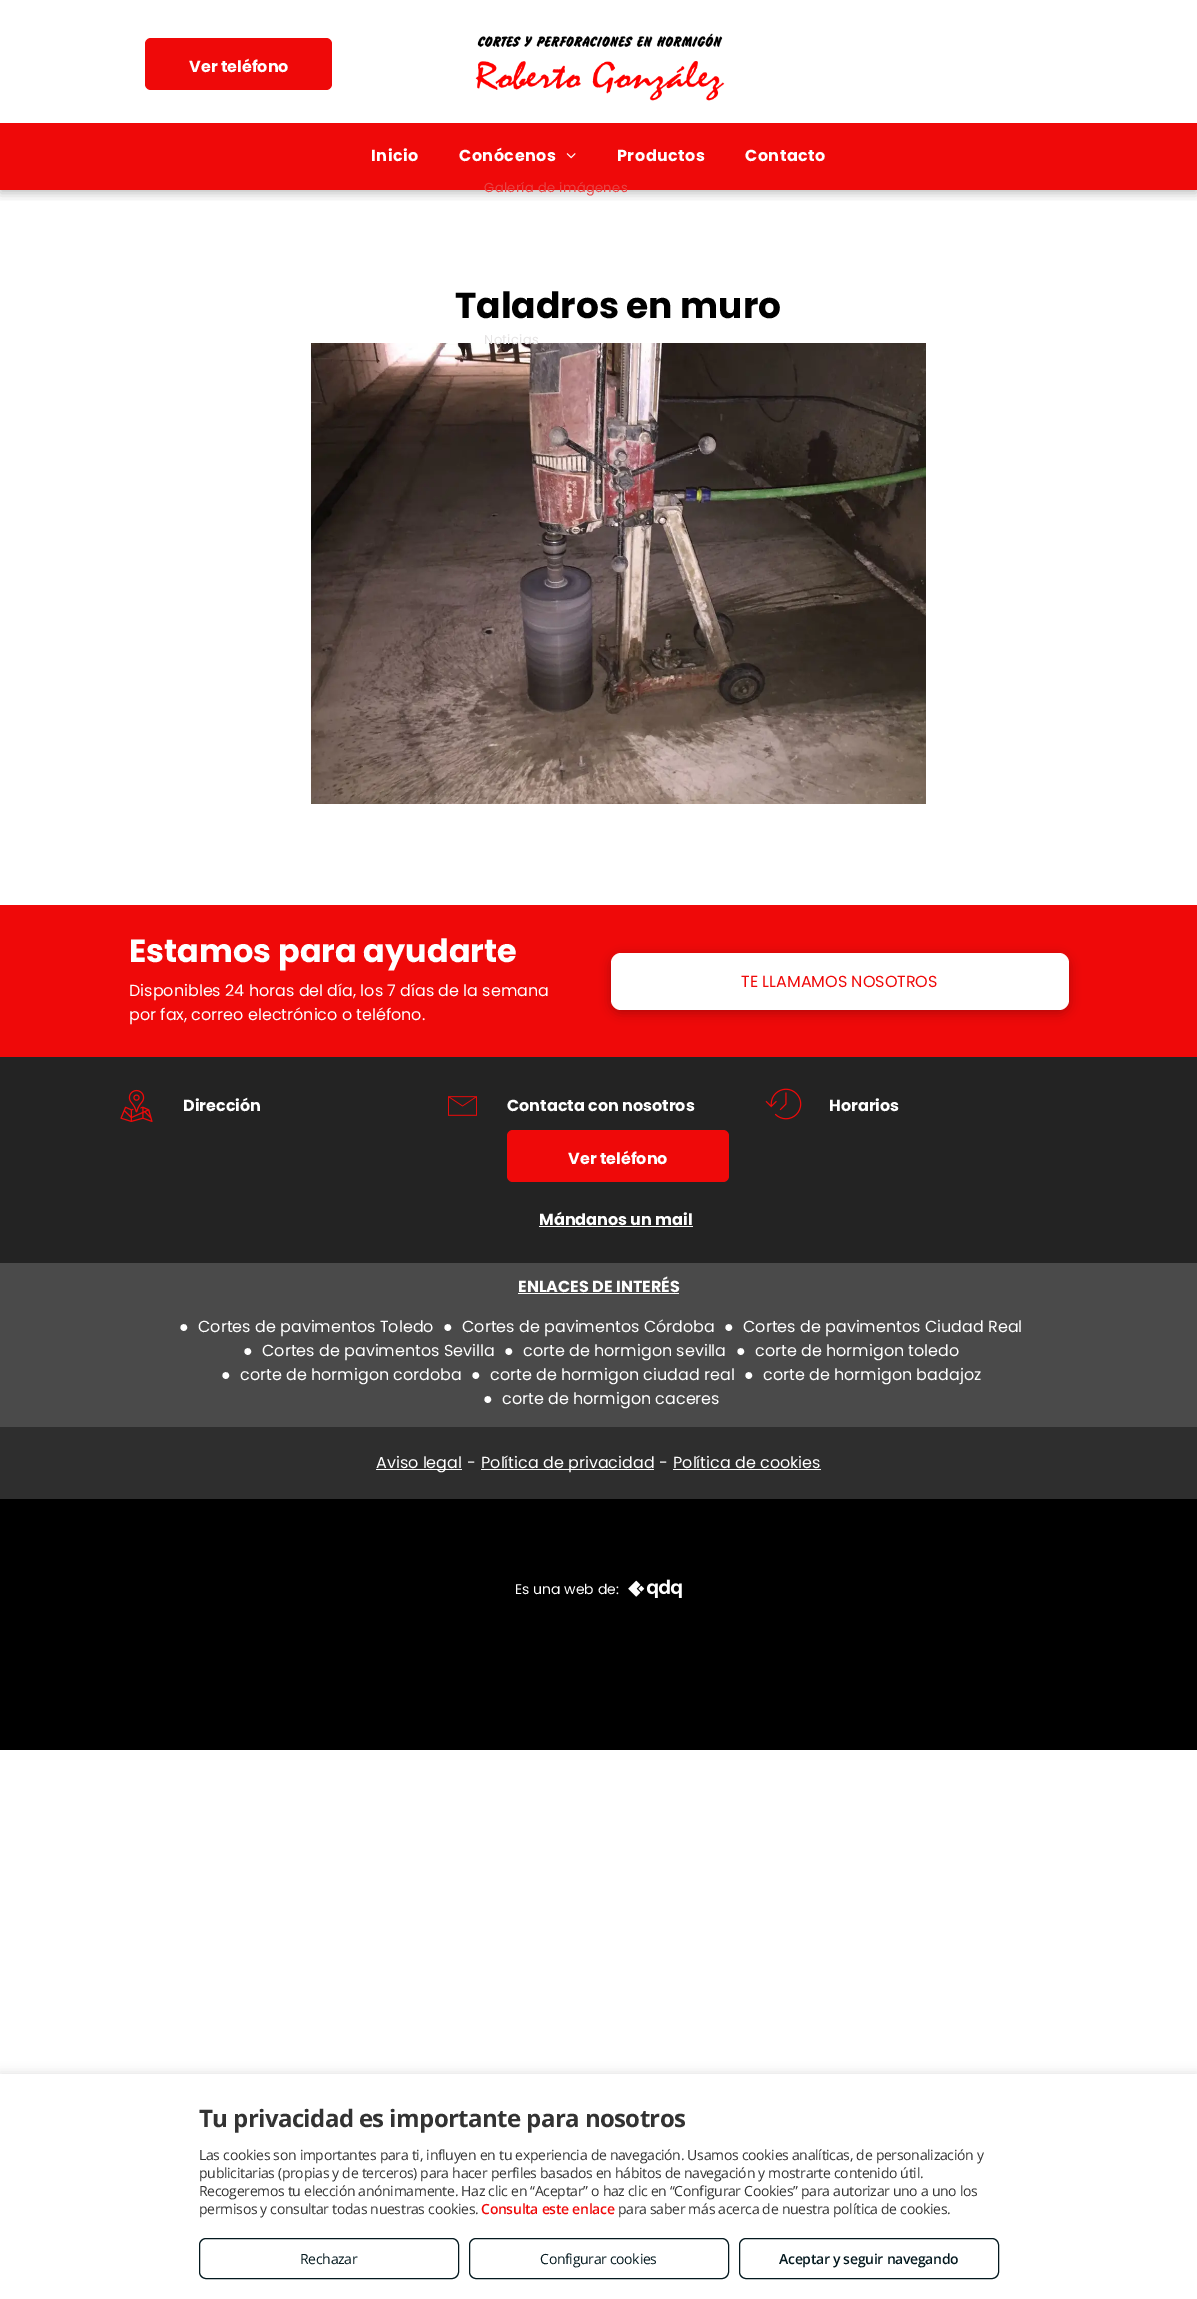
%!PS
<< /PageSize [1197 2299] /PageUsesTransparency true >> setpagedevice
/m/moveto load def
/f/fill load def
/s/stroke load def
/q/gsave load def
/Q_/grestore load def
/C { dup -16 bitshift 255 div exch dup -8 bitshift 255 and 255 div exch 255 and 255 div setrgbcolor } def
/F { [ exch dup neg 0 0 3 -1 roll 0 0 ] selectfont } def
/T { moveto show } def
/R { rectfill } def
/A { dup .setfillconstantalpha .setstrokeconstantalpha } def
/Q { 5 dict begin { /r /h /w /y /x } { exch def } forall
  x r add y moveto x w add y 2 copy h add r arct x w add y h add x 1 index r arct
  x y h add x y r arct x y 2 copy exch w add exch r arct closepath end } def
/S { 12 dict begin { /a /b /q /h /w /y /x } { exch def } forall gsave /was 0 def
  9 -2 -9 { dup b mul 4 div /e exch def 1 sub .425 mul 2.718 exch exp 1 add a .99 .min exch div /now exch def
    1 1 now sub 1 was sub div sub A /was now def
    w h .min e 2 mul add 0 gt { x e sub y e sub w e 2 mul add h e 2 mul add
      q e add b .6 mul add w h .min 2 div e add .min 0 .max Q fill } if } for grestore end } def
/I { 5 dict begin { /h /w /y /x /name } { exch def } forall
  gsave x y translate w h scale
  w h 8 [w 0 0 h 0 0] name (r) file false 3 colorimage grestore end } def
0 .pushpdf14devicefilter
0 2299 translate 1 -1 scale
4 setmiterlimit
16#FFFFFF C
0 0 1197 2299 R
q
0 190 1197 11 rectclip
16#000000 C
0 3 1197 190 0 5.5 .25 S
Q_
16#EF0909 C
145 38 187 52 6 Q f
/Poppins-Bold 16 F
16#FFFFFF C
(Ver teléfono) 189 72 T
(1.rgb) 475 33 250 68 I
16#EF0909 C
0 123 1197 67 R
16#FFFFFF C
371 161 m .5 0 (Inicio) ashow
459 161 m .5 0 (Conócenos) ashow
(2.rgb) 566 153 10 6 I
/Poppins-Regular 13 F
16#E84444 C
484 192 m .4 0 (Galería de imágenes) ashow
(3.rgb) 311 343 615 461 I
16#E6E4E4 C
484 344 m .4 0 (Noticias) ashow
/Poppins-Bold 16 F
16#FFFFFF C
617 161 m .5 0 (Productos) ashow
745 161 m .5 0 (Contacto) ashow
/Poppins-Bold 36 F
16#000000 C
(Taladros en muro) 455 318 T
16#EF0909 C
0 905 1197 152 R
/Poppins-Bold 32 F
16#FFFFFF C
(Estamos para ayudarte) 129 962 T
/Poppins-Regular 16 F
(Disponibles 24 horas del día, los 7 días de la semana) 129 996 T
(por fax, correo electrónico o teléfono.) 129 1020 T
16#000000 C
611 956 458 57 10 5.5 .25 S
16#FFFFFF C
611 953 458 57 10 Q f
16#EF0909 C
(TE LLAMAMOS NOSOTROS) 741 987 T
16#232323 C
0 1057 1197 206 R
(4.rgb) 120 1089 33 33 I
/Poppins-Bold 16 F
16#FFFFFF C
(Dirección) 183 1111 T
(5.rgb) 448 1096 29 20 I
(Contacta con nosotros) 507 1111 T
16#EF0909 C
507 1130 222 52 6 Q f
16#FFFFFF C
(Ver teléfono) 568 1164 T
(Mándanos un mail) 539 1225 T
539 1226 154 1 R
(6.rgb) 765 1088 37 32 I
(Horarios) 829 1111 T
16#4A4A4A C
0 1263 1197 164 R
16#FFFFFF C
(ENLACES DE INTERÉS) 518 1292 T
518 1293 161 1 R
/LiberationSerif-Regular 16 F
(●) 179 1332 T
/Poppins-Regular 16 F
(Cortes de pavimentos Toledo) 198 1332 T
/LiberationSerif-Regular 16 F
(●) 443 1332 T
/Poppins-Regular 16 F
(Cortes de pavimentos Córdoba) 462 1332 T
/LiberationSerif-Regular 16 F
(●) 724 1332 T
/Poppins-Regular 16 F
(Cortes de pavimentos Ciudad Real) 743 1332 T
/LiberationSerif-Regular 16 F
(●) 243 1356 T
/Poppins-Regular 16 F
(Cortes de pavimentos Sevilla) 262 1356 T
/LiberationSerif-Regular 16 F
(●) 504 1356 T
/Poppins-Regular 16 F
(corte de hormigon sevilla) 523 1356 T
/LiberationSerif-Regular 16 F
(●) 736 1356 T
/Poppins-Regular 16 F
(corte de hormigon toledo) 755 1356 T
/LiberationSerif-Regular 16 F
(●) 221 1380 T
/Poppins-Regular 16 F
(corte de hormigon cordoba) 240 1380 T
/LiberationSerif-Regular 16 F
(●) 471 1380 T
/Poppins-Regular 16 F
(corte de hormigon ciudad real) 490 1380 T
/LiberationSerif-Regular 16 F
(●) 744 1380 T
/Poppins-Regular 16 F
(corte de hormigon badajoz) 763 1380 T
/LiberationSerif-Regular 16 F
(●) 483 1404 T
/Poppins-Regular 16 F
(corte de hormigon caceres) 502 1404 T
16#2E2E2E C
0 1427 1197 72 R
16#FFFFFF C
376 1469 86 1 R
(Aviso legal) 376 1468 T
(-) 467 1468 T
481 1469 173 1 R
(Política de privacidad) 481 1468 T
(-) 659 1468 T
(Política de cookies) 673 1468 T
673 1469 148 1 R
16#000000 C
0 1499 1197 251 R
/Poppins-Regular 14 F
16#FFFFFF C
(Es una web de:) 515 1594 T
(7.rgb) 628 1579 54 19 I
16#000000 C
0 2072 1197 225 0 5 .1 S
16#FFFFFF C
0 2074 1197 225 R
/OpenSans-Bold 24 F
16#333333 C
199 2127 m -.6 0 (Tu privacidad es importante para nosotros) ashow
/OpenSans-Regular 14 F
199 2160 m -.3 0 (Las cookies son importantes para ti, influyen en tu experiencia de navegación. Usamos cookies analíticas, de personalización y) ashow
199 2178 m -.3 0 (publicitarias \(propias y de terceros\) para hacer perfiles basados en hábitos de navegación y mostrarte contenido útil.) ashow
199 2196 m -.3 0 (Recogeremos tu elección anónimamente. Haz clic en “Aceptar” o haz clic en “Configurar Cookies” para autorizar uno a uno los) ashow
199 2214 m -.3 0 (permisos y consultar todas nuestras cookies.) ashow
/OpenSans-SemiBold 14 F
16#EF0909 C
481 2214 m -.3 0 (Consulta este enlace) ashow
/OpenSans-Regular 14 F
16#333333 C
618 2214 m -.3 0 (para saber más acerca de nuestra política de cookies.) ashow
16#03181E C
199.5 2238.5 259 40 6.5 Q s
300 2264 m -.3 0 (Rechazar) ashow
469.5 2238.5 259 40 6.5 Q s
540 2264 m -.3 0 (Configurar cookies) ashow
739.5 2238.5 259 40 6.5 Q s
/OpenSans-SemiBold 14 F
779 2264 m -.3 0 (Aceptar y seguir navegando) ashow
.poppdf14devicefilter showpage
